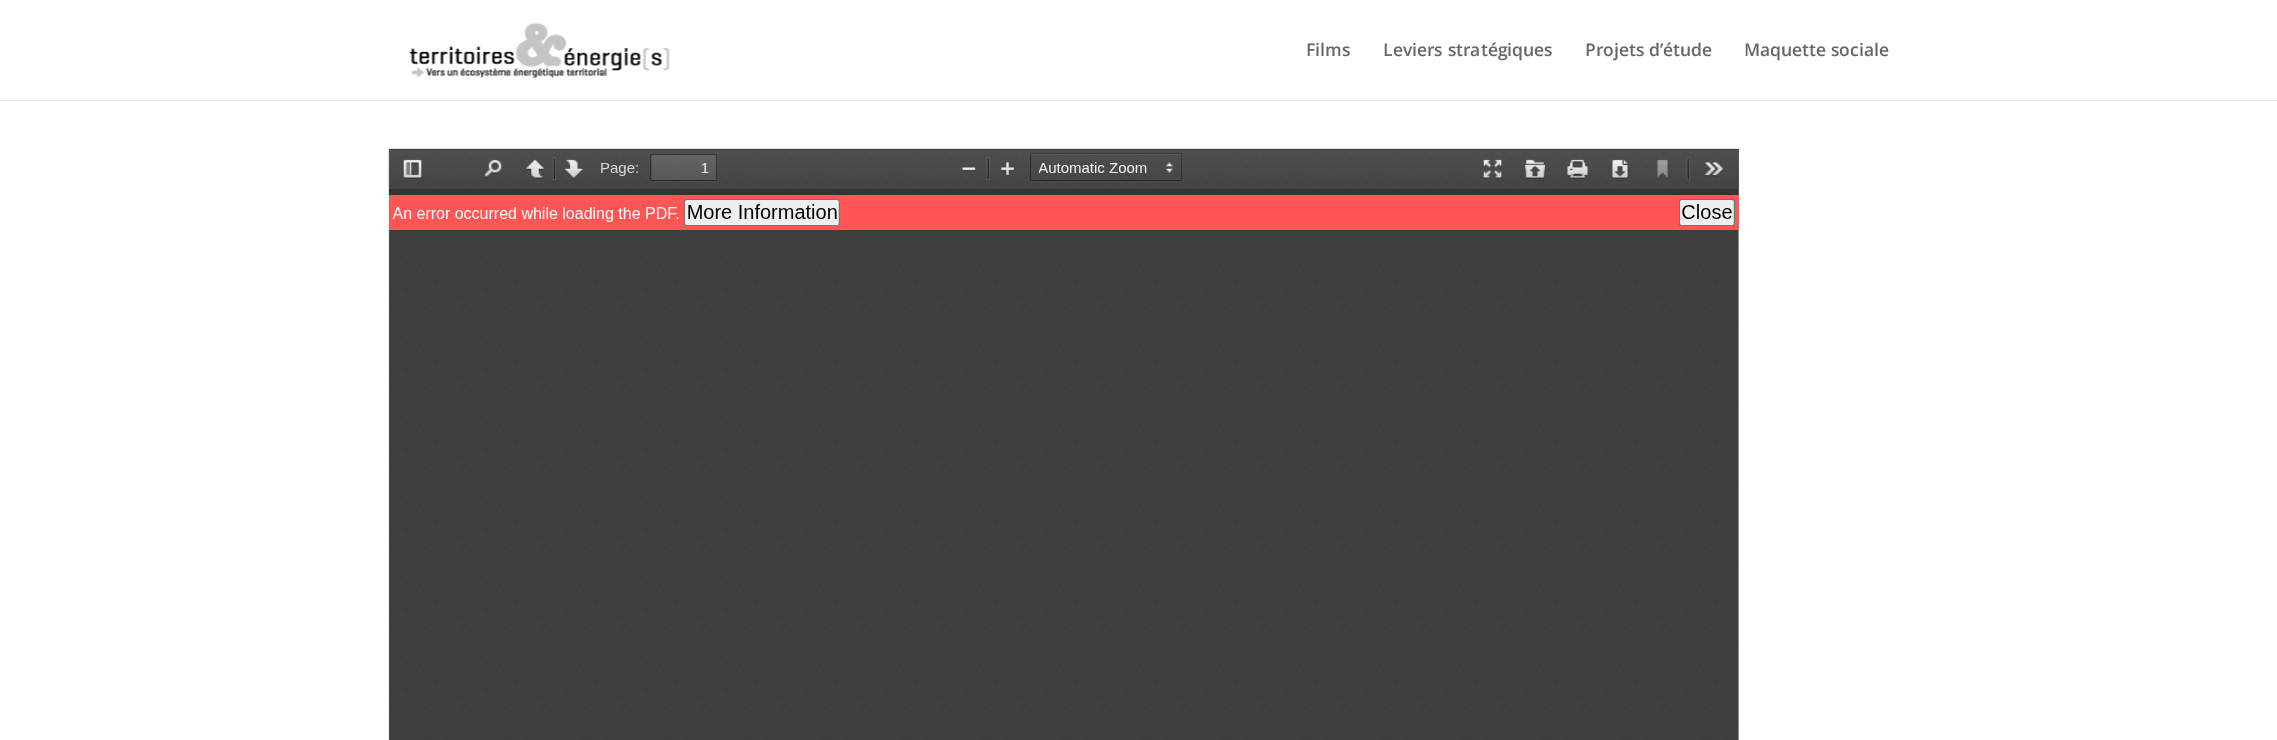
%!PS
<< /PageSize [2277 740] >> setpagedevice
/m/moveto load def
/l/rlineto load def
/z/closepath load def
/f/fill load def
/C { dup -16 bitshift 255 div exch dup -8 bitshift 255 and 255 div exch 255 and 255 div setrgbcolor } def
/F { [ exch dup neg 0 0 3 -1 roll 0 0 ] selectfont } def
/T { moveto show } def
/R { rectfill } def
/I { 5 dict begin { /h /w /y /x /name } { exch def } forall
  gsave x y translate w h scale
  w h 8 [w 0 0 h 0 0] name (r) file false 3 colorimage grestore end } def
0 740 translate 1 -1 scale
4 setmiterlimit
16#FFFFFF C
0 0 2277 740 R
16#E6E6E6 C
0 100 m 0 1 l 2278 0 l 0 -100 l 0 99 l z f
(1.rgb) 409 22 261 57 I
/OpenSans-SemiBold 17.5 F
16#666666 C
(Films) 1306 56 T
(Leviers stratégiques) 1383 56 T
(Projets d’étude) 1585 56 T
(Maquette sociale) 1744 56 T
(2.rgb) 388 148 1351 592 I
showpage
